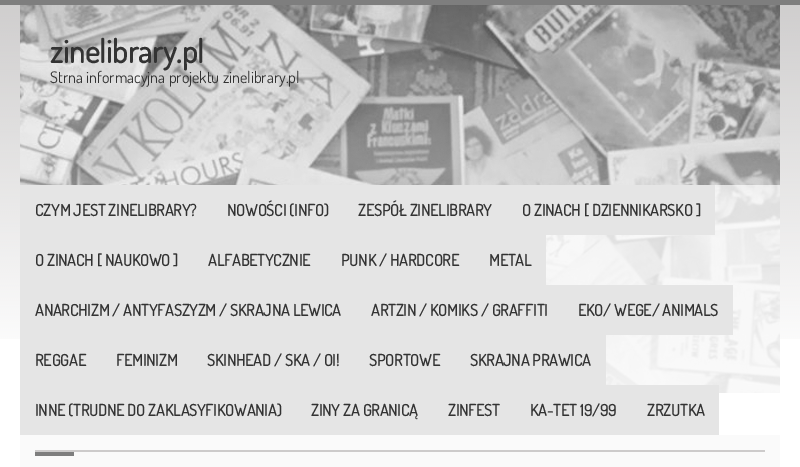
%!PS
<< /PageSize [800 467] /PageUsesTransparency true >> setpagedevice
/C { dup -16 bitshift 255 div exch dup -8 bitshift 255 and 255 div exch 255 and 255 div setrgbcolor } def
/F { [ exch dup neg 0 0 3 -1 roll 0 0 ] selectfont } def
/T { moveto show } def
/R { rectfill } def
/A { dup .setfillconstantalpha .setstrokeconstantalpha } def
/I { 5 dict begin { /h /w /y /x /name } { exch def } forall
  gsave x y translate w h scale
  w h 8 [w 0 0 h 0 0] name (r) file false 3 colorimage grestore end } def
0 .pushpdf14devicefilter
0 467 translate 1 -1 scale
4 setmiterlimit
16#FFFFFF C
0 0 800 467 R
(1.rgb) 0 5 800 334 I
16#7E7E7E C
0 0 800 5 R
(2.rgb) 20 5 760 388 I
/Dosis-Bold 32 F
16#333333 C
(zinelibrary.pl) 50 63 T
/Dosis-Regular 16 F
(Strna informacyjna projektu zinelibrary.pl) 50 83 T
0.69 A
16#FFFFFF C
546 185 234 208 R
1 A
16#E5E5E5 C
20 185 695 50 R
/Dosis-Bold 16 F
16#333333 C
(CZYM JEST ZINELIBRARY?) 35 216 T
(NOWOŚCI \(INFO\)) 227 216 T
(ZESPÓŁ ZINELIBRARY) 358 216 T
(O ZINACH [ DZIENNIKARSKO ]) 522 216 T
16#E5E5E5 C
20 235 526 50 R
16#333333 C
(O ZINACH [ NAUKOWO ]) 35 266 T
(ALFABETYCZNIE) 208 266 T
(PUNK / HARDCORE) 341 266 T
(METAL) 489 266 T
16#E5E5E5 C
20 285 713 50 R
16#333333 C
(ANARCHIZM / ANTYFASZYZM / SKRAJNA LEWICA) 35 316 T
(ARTZIN / KOMIKS / GRAFFITI) 371 316 T
(EKO/ WEGE/ ANIMALS) 578 316 T
16#E5E5E5 C
20 335 586 50 R
16#333333 C
(REGGAE) 35 366 T
(FEMINIZM) 116 366 T
(SKINHEAD / SKA / OI!) 207 366 T
(SPORTOWE) 369 366 T
(SKRAJNA PRAWICA) 470 366 T
16#E5E5E5 C
20 385 699 50 R
16#333333 C
(INNE \(TRUDNE DO ZAKLASYFIKOWANIA\)) 35 416 T
(ZINY ZA GRANICĄ) 311 416 T
(ZINFEST) 448 416 T
(KA-TET 19/99) 530 416 T
(ZRZUTKA) 647 416 T
16#FAFAFA C
20 435 760 32 R
16#7E7E7E C
35 452 39 4 R
16#CDCBCB C
35 450 730 2 R
.poppdf14devicefilter showpage
